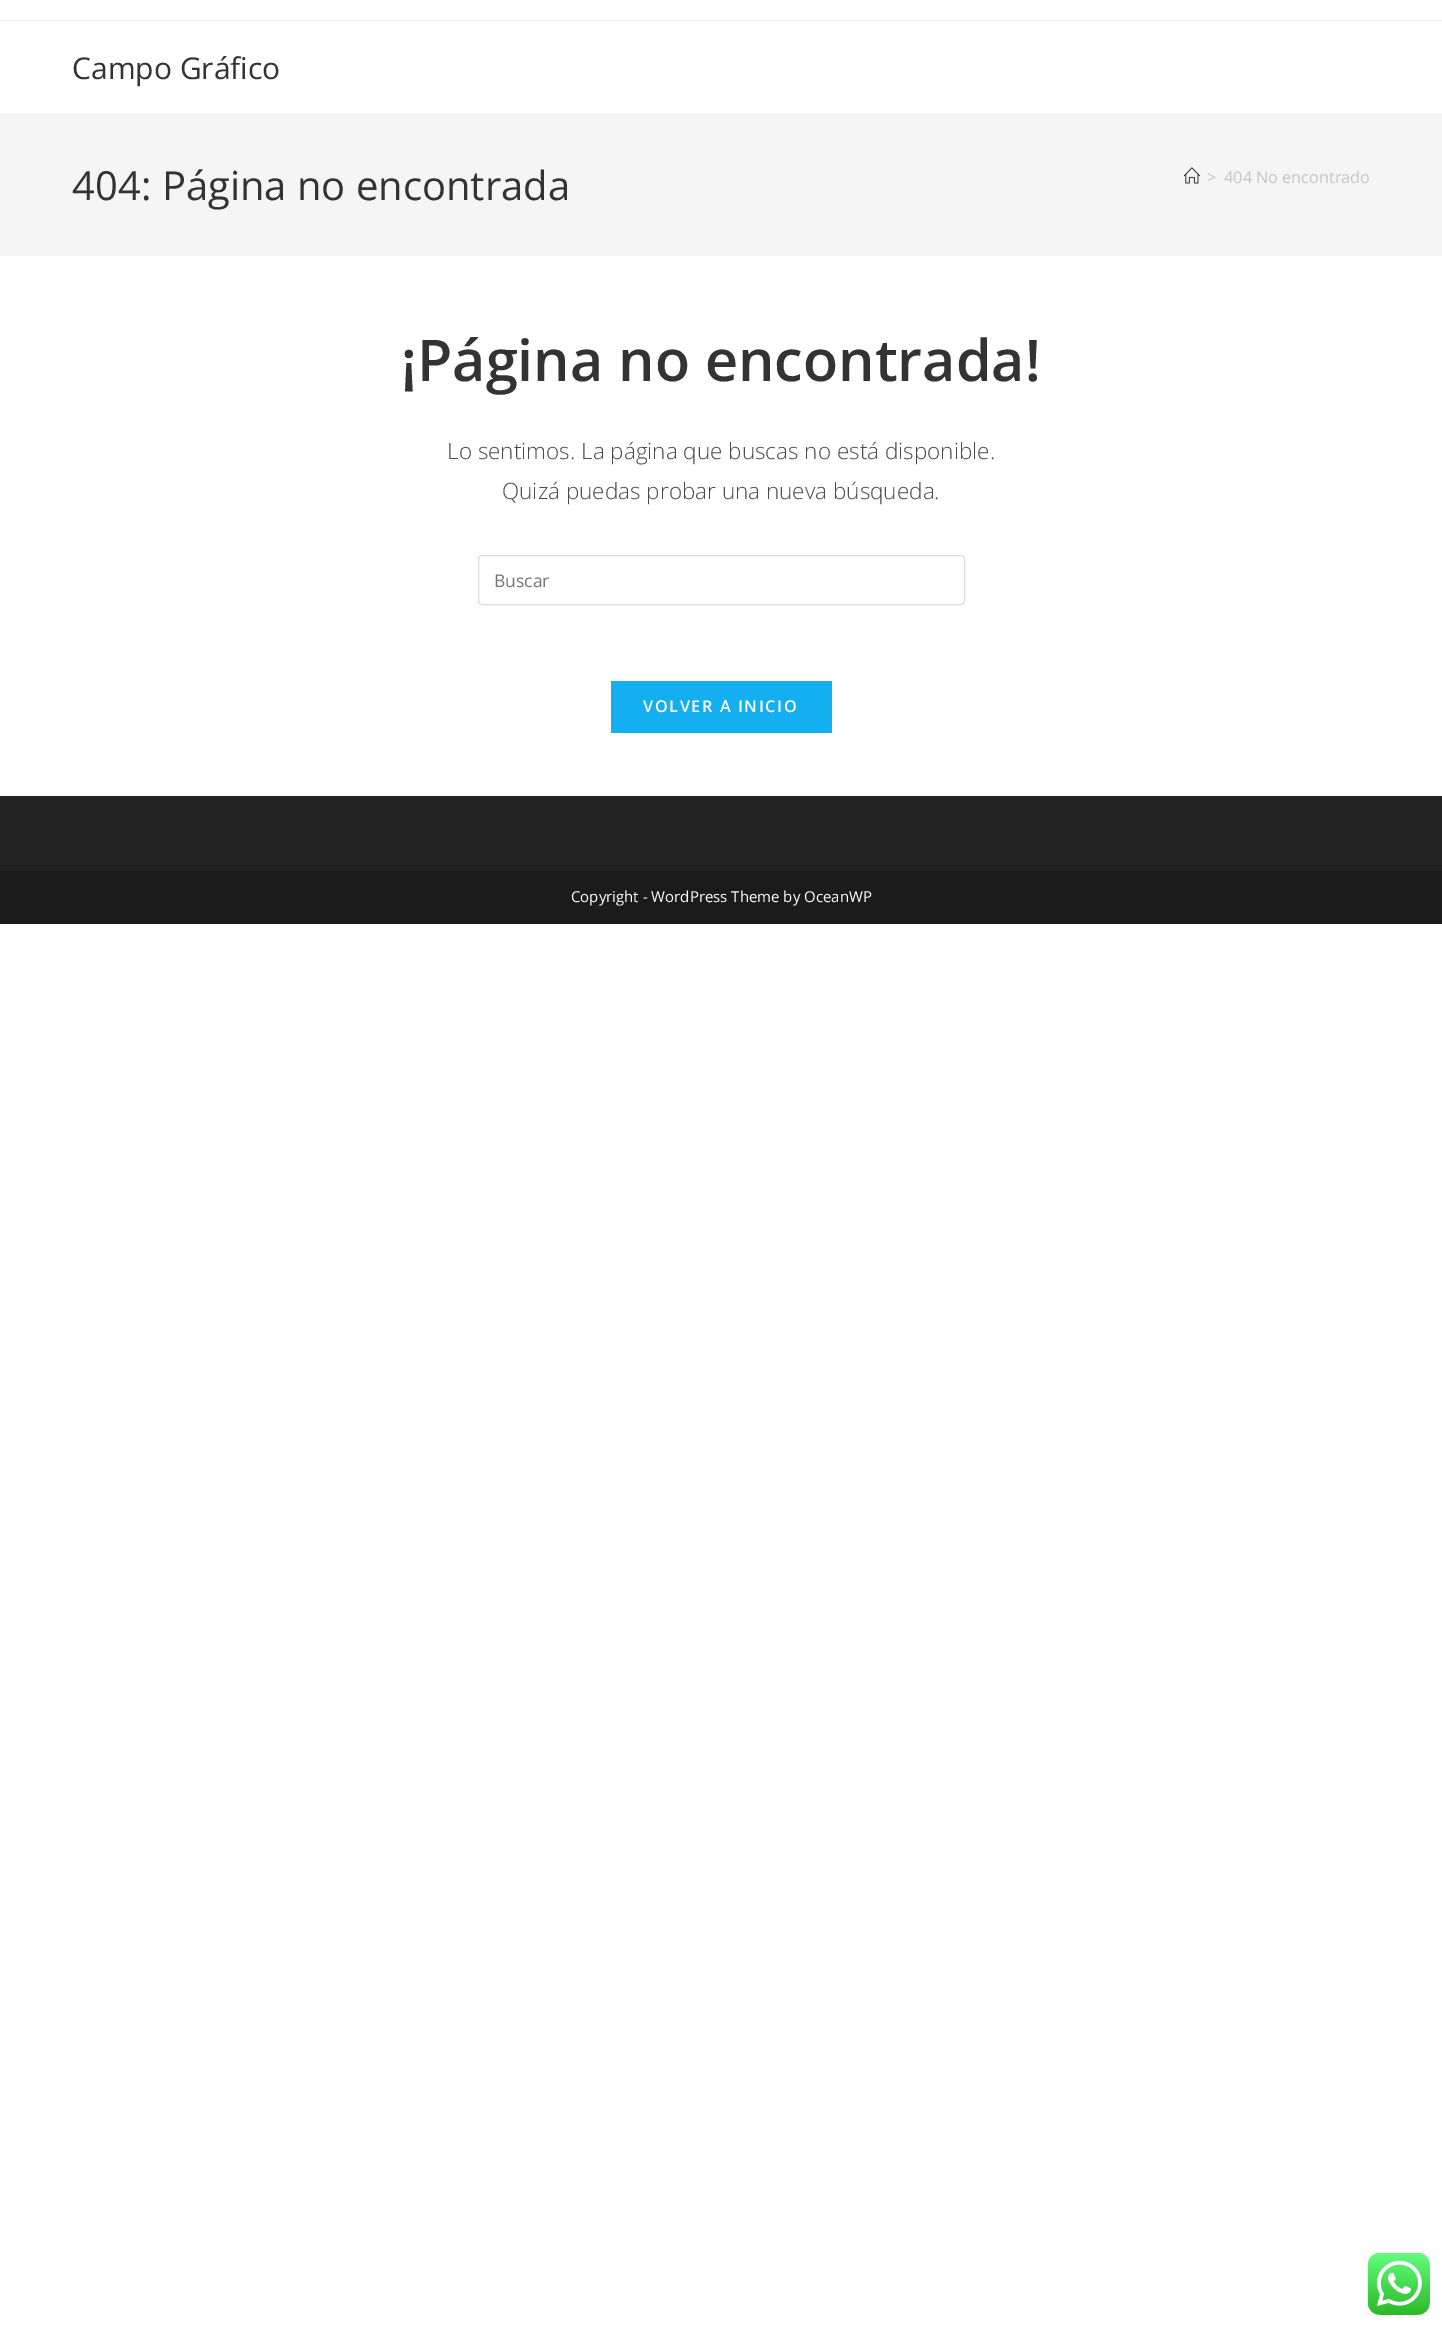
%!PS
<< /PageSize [1442 2327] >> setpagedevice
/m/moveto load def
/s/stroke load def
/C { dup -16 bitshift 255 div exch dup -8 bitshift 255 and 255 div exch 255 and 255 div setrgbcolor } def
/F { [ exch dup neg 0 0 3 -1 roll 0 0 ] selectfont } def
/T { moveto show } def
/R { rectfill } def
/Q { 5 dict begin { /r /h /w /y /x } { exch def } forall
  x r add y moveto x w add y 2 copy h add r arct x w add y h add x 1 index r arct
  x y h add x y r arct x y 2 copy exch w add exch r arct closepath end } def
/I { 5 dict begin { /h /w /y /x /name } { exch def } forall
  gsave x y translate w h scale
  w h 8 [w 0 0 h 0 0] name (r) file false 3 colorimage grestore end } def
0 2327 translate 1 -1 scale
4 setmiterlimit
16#FFFFFF C
0 0 1442 2327 R
16#F1F1F1 C
0 20 1442 1 R
0 114 1442 1 R
/OpenSans-Regular 30 F
16#333333 C
(Campo Gráfico) 72 79 T
16#F5F5F5 C
0 115 1442 141 R
/OpenSans-Regular 40 F
16#333333 C
(404: Página no encontrada) 72 200 T
(1.rgb) 1184 167 16 17 I
/OpenSans-Regular 16.25 F
16#C6C6C6 C
(>) 1207 183 T
(404 No encontrado) 1224 183 T
/OpenSans-SemiBold 57.5 F
16#333333 C
(¡Página no encontrada!) 401 381 T
/OpenSans-Light 22.5 F
16#4A4A4A C
(Lo sentimos. La página que buscas no está disponible.) 447 459 T
(Quizá puedas probar una nueva búsqueda.) 502 499 T
16#DDDDDD C
478.5 555.5 486 49 3.5 Q s
/OpenSans-Regular 17.5 F
16#757575 C
(Buscar) 494 587 T
16#13AFF0 C
611 681 221 52 R
/OpenSans-SemiBold 16.25 F
16#FFFFFF C
643 712 m 1.6 0 (VOLVER A INICIO) ashow
16#222222 C
0 796 1442 75 R
16#1B1B1B C
0 871 1442 53 R
/OpenSans-Regular 15 F
16#FFFFFF C
(Copyright - WordPress Theme by OceanWP) 571 902 T
(2.rgb) 1368 2253 62 62 I
showpage
